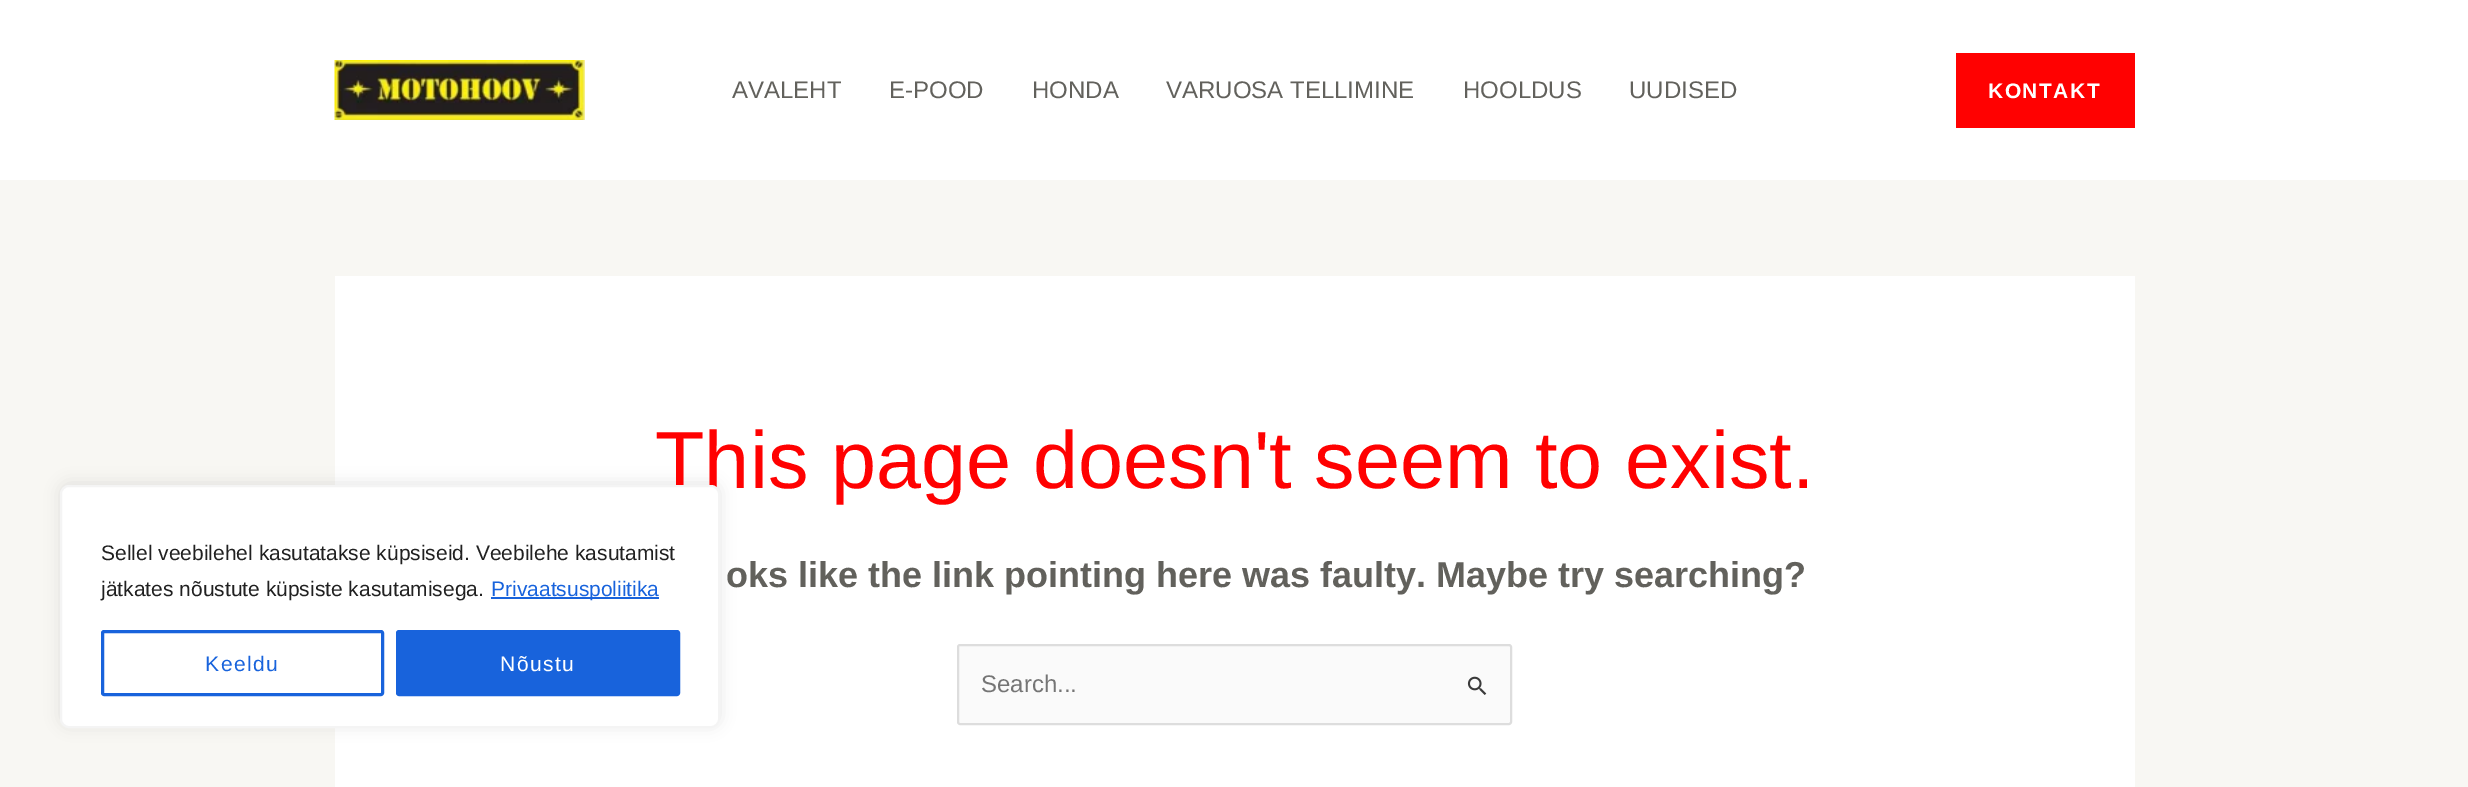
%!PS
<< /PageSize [2468 787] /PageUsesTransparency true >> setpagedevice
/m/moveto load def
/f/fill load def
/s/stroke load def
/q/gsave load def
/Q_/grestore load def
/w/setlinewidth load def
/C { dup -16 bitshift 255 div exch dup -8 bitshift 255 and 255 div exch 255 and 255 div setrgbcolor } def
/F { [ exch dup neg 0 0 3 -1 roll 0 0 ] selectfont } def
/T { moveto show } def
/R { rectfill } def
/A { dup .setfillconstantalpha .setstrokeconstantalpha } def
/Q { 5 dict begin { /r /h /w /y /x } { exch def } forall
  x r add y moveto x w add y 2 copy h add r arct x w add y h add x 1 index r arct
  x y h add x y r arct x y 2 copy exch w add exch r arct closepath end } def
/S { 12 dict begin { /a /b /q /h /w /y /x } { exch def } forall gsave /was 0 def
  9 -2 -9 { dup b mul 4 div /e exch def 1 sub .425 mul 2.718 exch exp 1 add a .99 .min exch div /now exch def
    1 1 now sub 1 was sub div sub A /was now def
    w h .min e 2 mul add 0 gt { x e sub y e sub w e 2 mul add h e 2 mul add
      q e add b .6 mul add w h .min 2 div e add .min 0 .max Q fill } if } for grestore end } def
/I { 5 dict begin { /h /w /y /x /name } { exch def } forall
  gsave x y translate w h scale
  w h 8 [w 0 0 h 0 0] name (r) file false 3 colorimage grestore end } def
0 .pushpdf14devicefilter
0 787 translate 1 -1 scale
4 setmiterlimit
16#F8F7F3 C
0 0 2468 787 R
16#FFFFFF C
335 276 1800 511 R
16#ACABAB C
60 483 660 243 9 7.5 .3 S
/LiberationSans-Regular 81 F
16#FF0101 C
(This page doesn't seem to exist.) 655 488 T
16#FFFFFF C
61 486 658 241 8 Q q f Q_
16#F4F4F4 C
2 w
s
/LiberationSans-Regular 21 F
16#212121 C
(Sellel veebilehel kasutatakse küpsiseid. Veebilehe kasutamist) 101 560 T
(jätkates nõustute küpsiste kasutamisega.) 101 596 T
16#1863DC C
491 597 168 2 R
(Privaatsuspoliitika) 491 596 T
3 w
102.5 631.5 280 63 1.5 Q s
205 671 m 1.5 0 (Keeldu) ashow
397.5 631.5 281 63 1.5 Q q f Q_
s
16#FFFFFF C
500 671 m 1.5 0 (Nõustu) ashow
0 0 2468 180 R
(1.rgb) 334 60 251 60 I
/LiberationSans-Regular 24 F
16#62615C C
(AVALEHT) 732 98 T
(E-POOD) 889 98 T
(HONDA) 1032 98 T
(VARUOSA TELLIMINE) 1166 98 T
(HOOLDUS) 1463 98 T
(UUDISED) 1629 98 T
16#FF0101 C
1956 53 179 75 R
/LiberationSans-Bold 21 F
16#FFFFFF C
1988 98 m 1.5 0 (KONTAKT) ashow
/LiberationSans-Bold 36 F
16#62615C C
(oks like the link pointing here was faulty. Maybe try searching?) 726 587 T
16#FAFAFA C
958 645 553 79 2 Q q f Q_
16#DDDDDD C
2 w
s
/LiberationSans-Regular 24 F
16#757575 C
(Search...) 981 692 T
(2.rgb) 1467 676 20 19 I
.poppdf14devicefilter showpage
